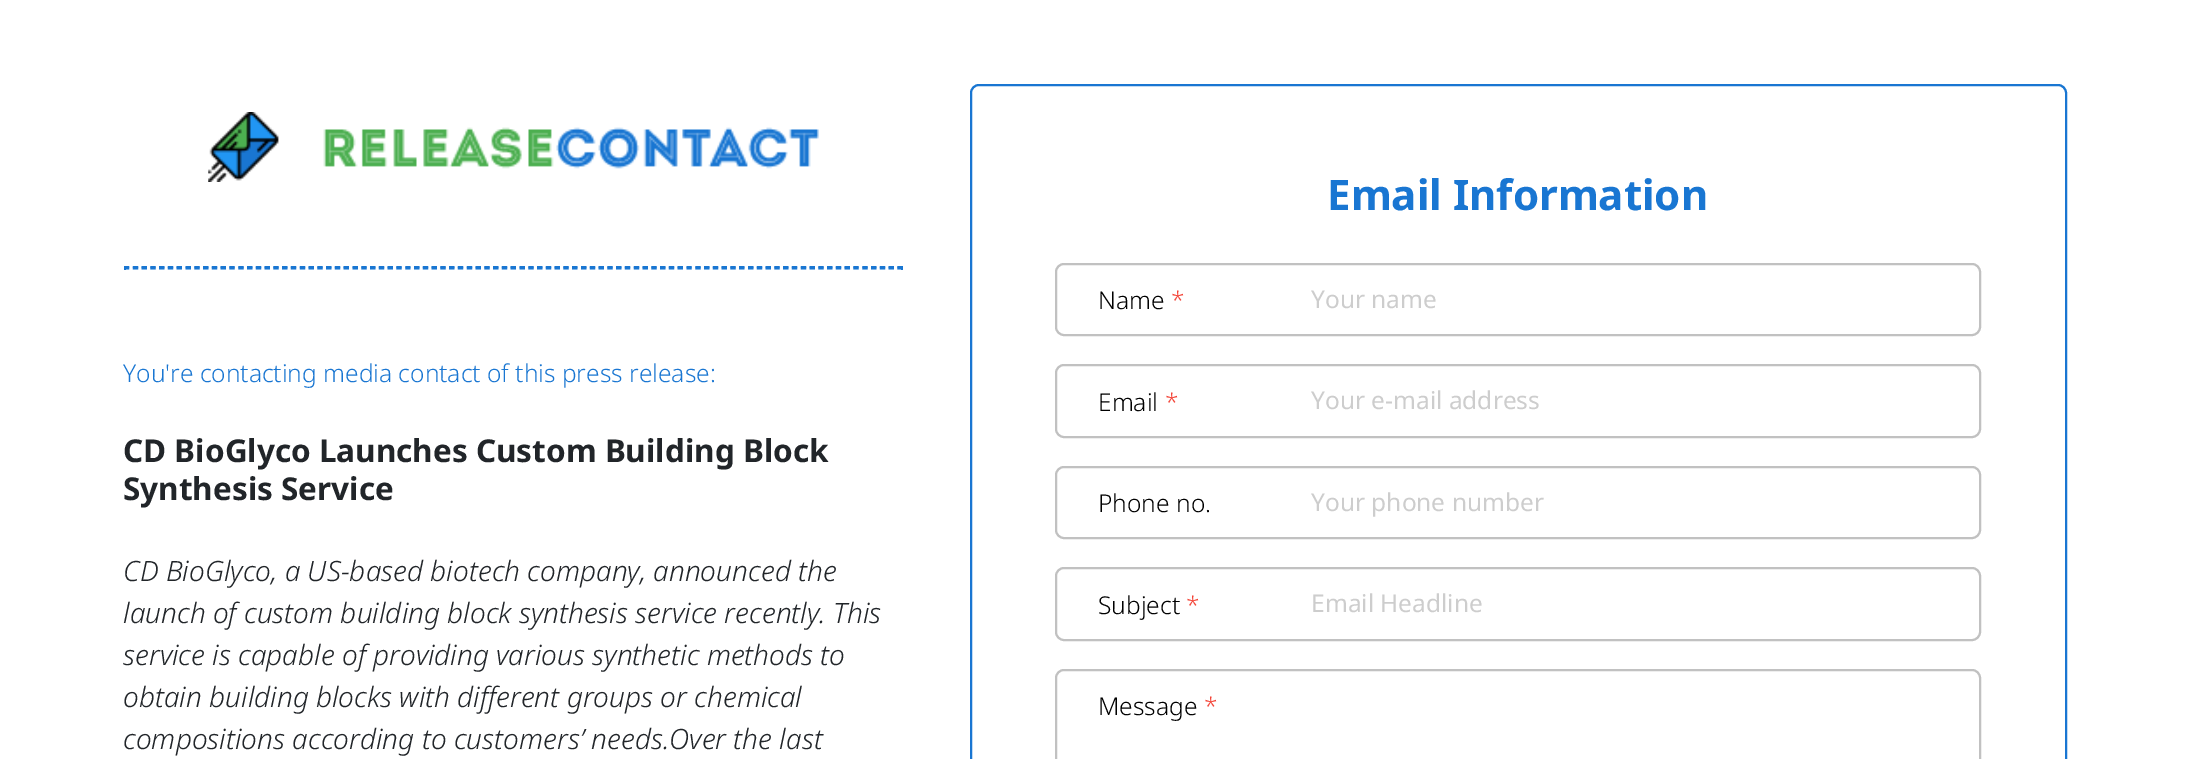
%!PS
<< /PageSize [2189 759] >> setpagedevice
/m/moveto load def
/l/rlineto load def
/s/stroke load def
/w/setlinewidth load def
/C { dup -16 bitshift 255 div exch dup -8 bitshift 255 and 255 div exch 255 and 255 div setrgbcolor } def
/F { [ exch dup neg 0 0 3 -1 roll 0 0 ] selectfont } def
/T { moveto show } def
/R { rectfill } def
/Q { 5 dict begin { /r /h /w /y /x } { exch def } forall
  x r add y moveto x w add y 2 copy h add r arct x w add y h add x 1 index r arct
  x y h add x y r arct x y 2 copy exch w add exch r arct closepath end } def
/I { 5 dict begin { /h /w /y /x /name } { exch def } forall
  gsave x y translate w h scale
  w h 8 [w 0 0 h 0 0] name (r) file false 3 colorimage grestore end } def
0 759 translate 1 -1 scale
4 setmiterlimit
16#FFFFFF C
0 0 2189 759 R
(1.rgb) 208 112 611 70 I
16#1976D2 C
1.8 w
[5.25 3.54] 0 setdash
124 267 m 779 0 l s
901 266 2 4 R
124 268.5 m 779 0 l s
124 266 2 4 R
/NotoSans-Light 24.5 F
(You're contacting media contact of this press release:) 123 382 T
/NotoSans-Bold 31.5 F
16#212529 C
(CD BioGlyco Launches Custom Building Block) 123 462 T
(Synthesis Service) 123 500 T
/NotoSans-LightItalic 28 F
(CD BioGlyco, a US-based biotech company, announced the) 123 581 T
(launch of custom building block synthesis service recently. This) 123 623 T
(service is capable of providing various synthetic methods to) 123 665 T
(obtain building blocks with different groups or chemical) 123 707 T
(compositions according to customers’ needs.Over the last) 123 749 T
16#1976D2 C
2 w
[] 0 setdash
971 85 1095 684 8 Q s
/NotoSans-Bold 42 F
(Email Information) 1327 210 T
16#C1C1C1 C
1056 264 924 71 8 Q s
/NotoSans-Light 24.5 F
16#000000 C
(Name) 1098 309 T
16#F44336 C
(*) 1171 309 T
/NotoSans-Regular 24.5 F
16#CDCDCD C
(Your name) 1311 308 T
16#C1C1C1 C
1056 365 924 72 8 Q s
/NotoSans-Light 24.5 F
16#000000 C
(Email) 1098 411 T
16#F44336 C
(*) 1165 411 T
/NotoSans-Regular 24.5 F
16#CDCDCD C
(Your e-mail address) 1311 409 T
16#C1C1C1 C
1056 467 924 71 8 Q s
/NotoSans-Light 24.5 F
16#000000 C
(Phone no.) 1098 512 T
/NotoSans-Regular 24.5 F
16#CDCDCD C
(Your phone number) 1311 511 T
16#C1C1C1 C
1056 568 924 72 8 Q s
/NotoSans-Light 24.5 F
16#000000 C
(Subject) 1098 614 T
16#F44336 C
(*) 1186 614 T
/NotoSans-Regular 24.5 F
16#CDCDCD C
(Email Headline) 1311 612 T
16#C1C1C1 C
1056 670 924 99 8 Q s
/NotoSans-Light 24.5 F
16#000000 C
(Message) 1098 715 T
16#F44336 C
(*) 1204 715 T
showpage
